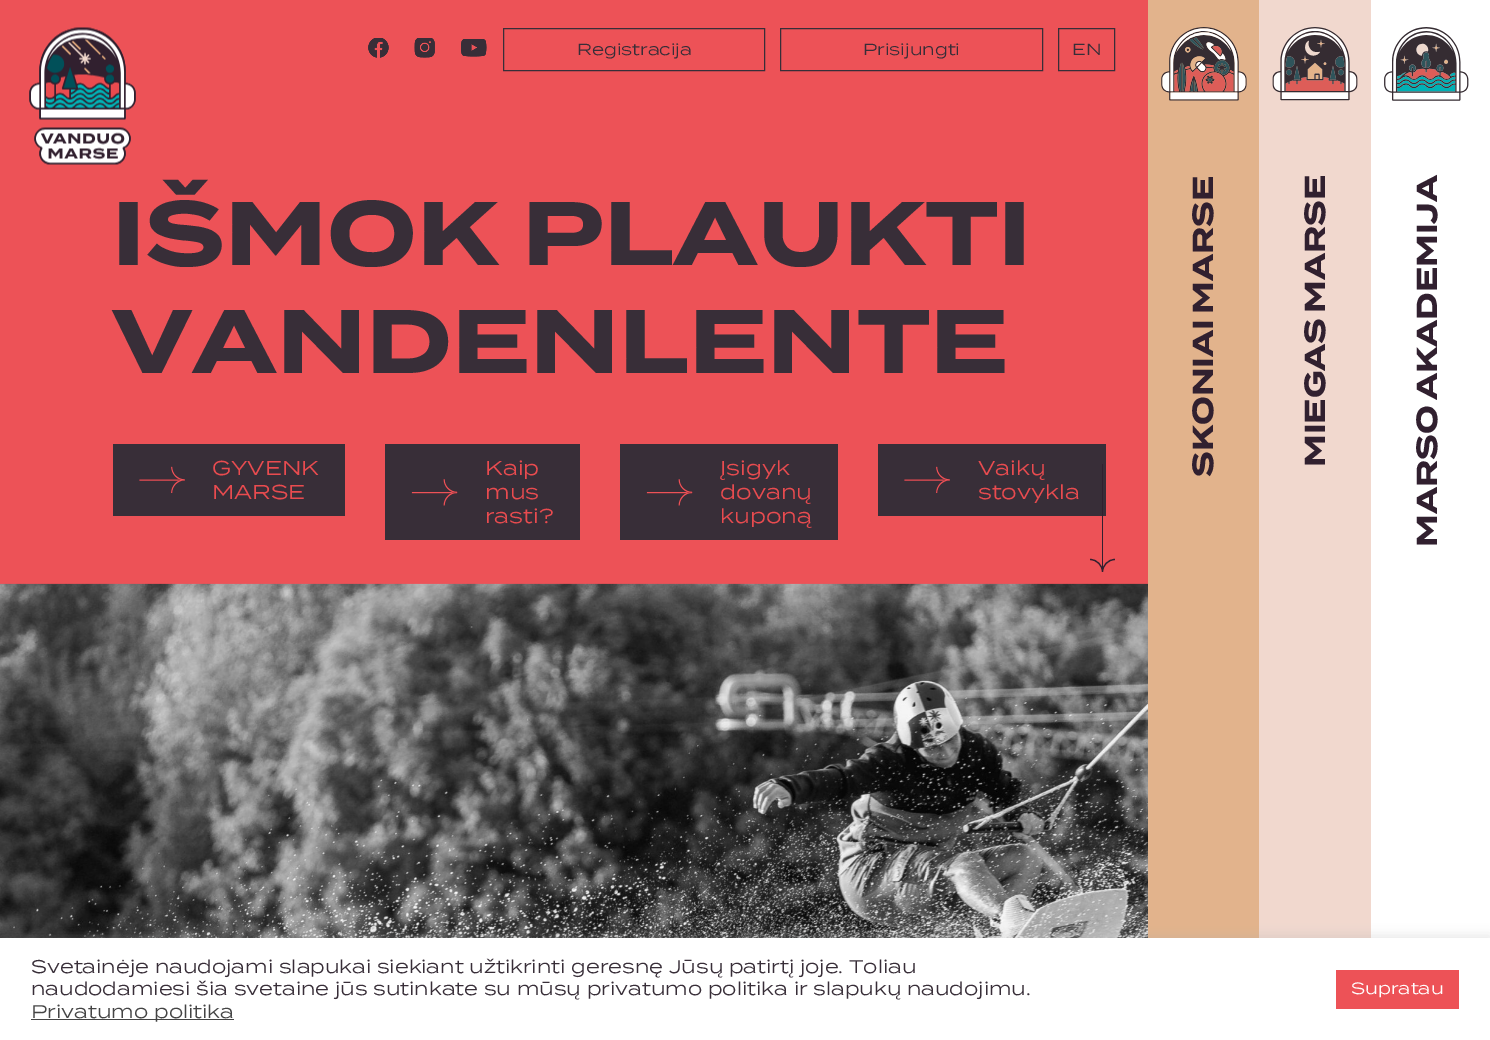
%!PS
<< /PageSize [1490 1040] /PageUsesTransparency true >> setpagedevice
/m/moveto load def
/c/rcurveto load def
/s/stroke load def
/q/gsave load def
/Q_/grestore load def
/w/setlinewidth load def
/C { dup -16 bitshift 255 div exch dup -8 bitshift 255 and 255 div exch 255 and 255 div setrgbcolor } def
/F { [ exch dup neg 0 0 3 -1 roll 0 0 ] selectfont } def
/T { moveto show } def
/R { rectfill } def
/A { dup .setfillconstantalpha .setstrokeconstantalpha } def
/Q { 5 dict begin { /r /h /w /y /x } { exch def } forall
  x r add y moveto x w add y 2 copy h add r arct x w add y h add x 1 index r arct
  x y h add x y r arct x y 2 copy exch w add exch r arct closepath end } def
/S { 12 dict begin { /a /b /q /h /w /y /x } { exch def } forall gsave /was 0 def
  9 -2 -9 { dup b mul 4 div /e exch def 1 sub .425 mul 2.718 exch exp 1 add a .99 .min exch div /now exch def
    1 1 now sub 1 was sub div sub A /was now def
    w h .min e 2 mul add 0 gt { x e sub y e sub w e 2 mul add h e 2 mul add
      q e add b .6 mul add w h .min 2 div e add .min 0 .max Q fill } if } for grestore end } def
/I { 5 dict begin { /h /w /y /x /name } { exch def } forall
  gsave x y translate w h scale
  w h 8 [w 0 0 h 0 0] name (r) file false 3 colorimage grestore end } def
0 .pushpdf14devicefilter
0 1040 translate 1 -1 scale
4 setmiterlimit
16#FFFFFF C
0 0 1490 1040 R
16#ED5257 C
0 0 1148 584 R
(1.rgb) 29 27 107 138 I
(2.rgb) 368 38 21 20 I
(3.rgb) 414 38 21 20 I
(4.rgb) 461 39 26 18 I
16#382E38 C
503.5 28.5 261 42 rectstroke
/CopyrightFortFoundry-Regular 16 F
(Registracija) 577 55 T
780.5 28.5 262 42 rectstroke
(Prisijungti) 863 55 T
1058.5 28.5 56 42 rectstroke
(EN) 1072 55 T
/CopyrightFortFoundry-Bold 90 F
(IŠMOK PLAUKTI) 112 265 T
(VANDENLENTE) 112 373 T
113 444 232 72 R
(5.rgb) 139 466 46 27 I
/CopyrightFortFoundry-Regular 20 F
16#E94B4F C
(GYVENK) 212 475 T
(MARSE) 212 499 T
16#382E38 C
385 444 195 96 R
16#E94B4F C
(Kaip) 485 475 T
(6.rgb) 411 479 47 27 I
(mus) 485 499 T
(rasti?) 485 523 T
16#382E38 C
620 444 218 96 R
16#E94B4F C
(Įsigyk) 720 475 T
(6.rgb) 646 479 47 27 I
(dovanų) 720 499 T
(kuponą) 720 523 T
16#382E38 C
878 444 228 72 R
(5.rgb) 904 466 46 27 I
16#E94B4F C
(Vaikų) 978 475 T
(stovykla) 978 499 T
(7.rgb) 0 583 1148 355 I
16#31202F C
1102 464 1 108 R
1.2 w
1090 559.5 m 7 0 12.5 6 12.5 12.5 c 1102.5 572 m 0 -6.5 5.5 -12.5 12.5 -12.5 c s
16#E2B38C C
1148 0 111 938 R
(8.rgb) 1161 27 86 74 I
/CopyrightFortFoundry-Bold 28.9 F
16#31202F C
q 1213 477 translate -90 rotate 0 0 m -2 0 32 (SKONIAI MARSE) widthshow Q_
16#F1D8CE C
1259 0 112 938 R
(9.rgb) 1272 27 86 74 I
16#31202F C
q 1325 467 translate -90 rotate 0 0 m -2 0 32 (MIEGAS MARSE) widthshow Q_
(10.rgb) 1384 27 85 74 I
q 1437 547 translate -90 rotate 0 0 m -2 0 32 (MARSO AKADEMIJA) widthshow Q_
16#ACABAB C
0 936 1490 103 0 6 .3 S
16#FFFFFF C
0 938 1490 102 R
/CopyrightFortFoundry-Regular 18.33 F
16#382E38 C
(Svetainėje naudojami slapukai siekiant užtikrinti geresnę Jūsų patirtį joje. Toliau) 31 973 T
(naudodamiesi šia svetaine jūs sutinkate su mūsų privatumo politika ir slapukų naudojimu.) 31 995 T
16#444444 C
31 1019 203 1 R
(Privatumo politika) 31 1018 T
16#ED5257 C
1336 970 123 39 R
/CopyrightFortFoundry-Regular 16.25 F
16#FFFFFF C
(Supratau) 1351 994 T
.poppdf14devicefilter showpage
